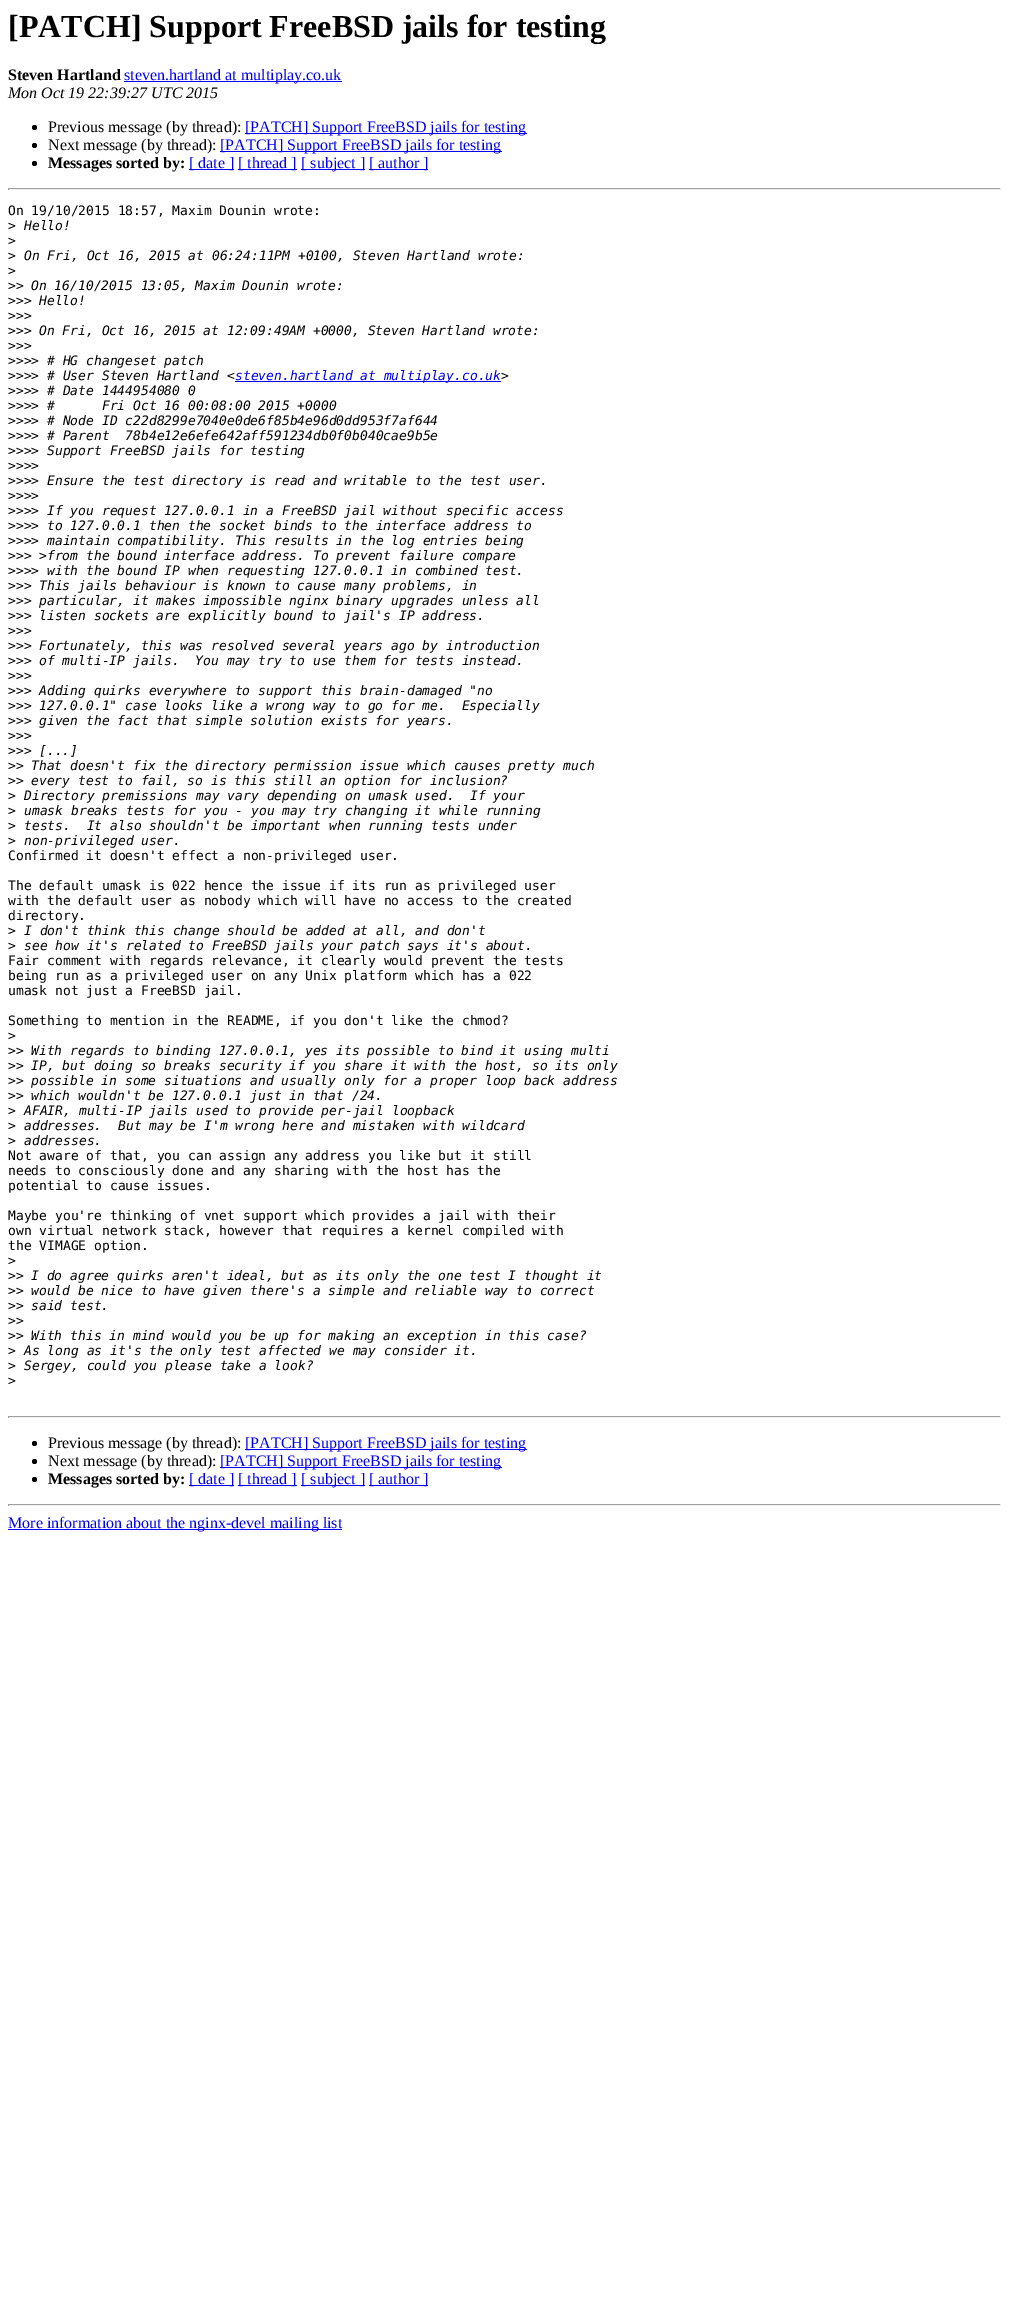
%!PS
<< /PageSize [1009 2320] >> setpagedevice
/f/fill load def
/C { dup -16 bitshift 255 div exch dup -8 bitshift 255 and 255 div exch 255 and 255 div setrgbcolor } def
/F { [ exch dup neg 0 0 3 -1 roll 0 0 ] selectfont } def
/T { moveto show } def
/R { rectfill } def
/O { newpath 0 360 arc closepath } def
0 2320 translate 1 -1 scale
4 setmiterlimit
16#FFFFFF C
0 0 1009 2320 R
/LiberationSerif-Bold 32 F
16#000000 C
([PATCH] Support FreeBSD jails for testing) 8 37 T
/LiberationSerif-Bold 16 F
(Steven Hartland) 8 80 T
16#0000EE C
124 81 218 1 R
/LiberationSerif-Regular 16 F
(steven.hartland at multiplay.co.uk) 124 80 T
/LiberationSerif-Italic 16 F
16#000000 C
(Mon Oct 19 22:39:27 UTC 2015) 8 98 T
34.5 127.5 2.5 O f
/LiberationSerif-Regular 16 F
(Previous message \(by thread\):) 48 132 T
16#0000EE C
245 133 282 1 R
([PATCH] Support FreeBSD jails for testing) 245 132 T
16#000000 C
34.5 145.5 2.5 O f
(Next message \(by thread\):) 48 150 T
16#0000EE C
220 151 282 1 R
([PATCH] Support FreeBSD jails for testing) 220 150 T
16#000000 C
34.5 163.5 2.5 O f
/LiberationSerif-Bold 16 F
(Messages sorted by:) 48 168 T
16#0000EE C
189 169 45 1 R
/LiberationSerif-Regular 16 F
([ date ]) 189 168 T
238 169 59 1 R
([ thread ]) 238 168 T
301 169 64 1 R
([ subject ]) 301 168 T
369 169 59 1 R
([ author ]) 369 168 T
16#9F9F9F C
8 188 993 1 R
16#EEEEEE C
1000 188 1 2 R
8 189 993 1 R
16#9F9F9F C
8 188 1 2 R
/DejaVuSansMono-Regular 13 F
16#000000 C
(On 19/10/2015 18:57, Maxim Dounin wrote:) 8 215 T
(>) 8 230 T
/DejaVuSansMono-Italic 13 F
(Hello!) 24 230 T
/DejaVuSansMono-Regular 13 F
(>) 8 245 T
(>) 8 260 T
/DejaVuSansMono-Italic 13 F
(On Fri, Oct 16, 2015 at 06:24:11PM +0100, Steven Hartland wrote:) 24 260 T
/DejaVuSansMono-Regular 13 F
(>) 8 275 T
(>>) 8 290 T
/DejaVuSansMono-Italic 13 F
(On 16/10/2015 13:05, Maxim Dounin wrote:) 31 290 T
/DejaVuSansMono-Regular 13 F
(>>>) 8 305 T
/DejaVuSansMono-Italic 13 F
(Hello!) 39 305 T
/DejaVuSansMono-Regular 13 F
(>>>) 8 320 T
(>>>) 8 335 T
/DejaVuSansMono-Italic 13 F
(On Fri, Oct 16, 2015 at 12:09:49AM +0000, Steven Hartland wrote:) 39 335 T
/DejaVuSansMono-Regular 13 F
(>>>) 8 350 T
(>>>>) 8 365 T
/DejaVuSansMono-Italic 13 F
(# HG changeset patch) 47 365 T
/DejaVuSansMono-Regular 13 F
(>>>>) 8 380 T
/DejaVuSansMono-Italic 13 F
(# User Steven Hartland <) 47 380 T
16#0000EE C
235 381 266 1 R
(steven.hartland at multiplay.co.uk) 235 380 T
16#000000 C
(>) 501 380 T
/DejaVuSansMono-Regular 13 F
(>>>>) 8 395 T
/DejaVuSansMono-Italic 13 F
(# Date 1444954080 0) 47 395 T
/DejaVuSansMono-Regular 13 F
(>>>>) 8 410 T
/DejaVuSansMono-Italic 13 F
(#      Fri Oct 16 00:08:00 2015 +0000) 47 410 T
/DejaVuSansMono-Regular 13 F
(>>>>) 8 425 T
/DejaVuSansMono-Italic 13 F
(# Node ID c22d8299e7040e0de6f85b4e96d0dd953f7af644) 47 425 T
/DejaVuSansMono-Regular 13 F
(>>>>) 8 440 T
/DejaVuSansMono-Italic 13 F
(# Parent  78b4e12e6efe642aff591234db0f0b040cae9b5e) 47 440 T
/DejaVuSansMono-Regular 13 F
(>>>>) 8 455 T
/DejaVuSansMono-Italic 13 F
(Support FreeBSD jails for testing) 47 455 T
/DejaVuSansMono-Regular 13 F
(>>>>) 8 470 T
(>>>>) 8 485 T
/DejaVuSansMono-Italic 13 F
(Ensure the test directory is read and writable to the test user.) 47 485 T
/DejaVuSansMono-Regular 13 F
(>>>>) 8 500 T
(>>>>) 8 515 T
/DejaVuSansMono-Italic 13 F
(If you request 127.0.0.1 in a FreeBSD jail without specific access) 47 515 T
/DejaVuSansMono-Regular 13 F
(>>>>) 8 530 T
/DejaVuSansMono-Italic 13 F
(to 127.0.0.1 then the socket binds to the interface address to) 47 530 T
/DejaVuSansMono-Regular 13 F
(>>>>) 8 545 T
/DejaVuSansMono-Italic 13 F
(maintain compatibility. This results in the log entries being) 47 545 T
/DejaVuSansMono-Regular 13 F
(>>>) 8 560 T
/DejaVuSansMono-Italic 13 F
(>from the bound interface address. To prevent failure compare) 39 560 T
/DejaVuSansMono-Regular 13 F
(>>>>) 8 575 T
/DejaVuSansMono-Italic 13 F
(with the bound IP when requesting 127.0.0.1 in combined test.) 47 575 T
/DejaVuSansMono-Regular 13 F
(>>>) 8 590 T
/DejaVuSansMono-Italic 13 F
(This jails behaviour is known to cause many problems, in) 39 590 T
/DejaVuSansMono-Regular 13 F
(>>>) 8 605 T
/DejaVuSansMono-Italic 13 F
(particular, it makes impossible nginx binary upgrades unless all) 39 605 T
/DejaVuSansMono-Regular 13 F
(>>>) 8 620 T
/DejaVuSansMono-Italic 13 F
(listen sockets are explicitly bound to jail's IP address.) 39 620 T
/DejaVuSansMono-Regular 13 F
(>>>) 8 635 T
(>>>) 8 650 T
/DejaVuSansMono-Italic 13 F
(Fortunately, this was resolved several years ago by introduction) 39 650 T
/DejaVuSansMono-Regular 13 F
(>>>) 8 665 T
/DejaVuSansMono-Italic 13 F
(of multi-IP jails.  You may try to use them for tests instead.) 39 665 T
/DejaVuSansMono-Regular 13 F
(>>>) 8 680 T
(>>>) 8 695 T
/DejaVuSansMono-Italic 13 F
(Adding quirks everywhere to support this brain-damaged "no) 39 695 T
/DejaVuSansMono-Regular 13 F
(>>>) 8 710 T
/DejaVuSansMono-Italic 13 F
(127.0.0.1" case looks like a wrong way to go for me.  Especially) 39 710 T
/DejaVuSansMono-Regular 13 F
(>>>) 8 725 T
/DejaVuSansMono-Italic 13 F
(given the fact that simple solution exists for years.) 39 725 T
/DejaVuSansMono-Regular 13 F
(>>>) 8 740 T
(>>>) 8 755 T
/DejaVuSansMono-Italic 13 F
([...]) 39 755 T
/DejaVuSansMono-Regular 13 F
(>>) 8 770 T
/DejaVuSansMono-Italic 13 F
(That doesn't fix the directory permission issue which causes pretty much) 31 770 T
/DejaVuSansMono-Regular 13 F
(>>) 8 785 T
/DejaVuSansMono-Italic 13 F
(every test to fail, so is this still an option for inclusion?) 31 785 T
/DejaVuSansMono-Regular 13 F
(>) 8 800 T
/DejaVuSansMono-Italic 13 F
(Directory premissions may vary depending on umask used.  If your) 24 800 T
/DejaVuSansMono-Regular 13 F
(>) 8 815 T
/DejaVuSansMono-Italic 13 F
(umask breaks tests for you - you may try changing it while running) 24 815 T
/DejaVuSansMono-Regular 13 F
(>) 8 830 T
/DejaVuSansMono-Italic 13 F
(tests.  It also shouldn't be important when running tests under) 24 830 T
/DejaVuSansMono-Regular 13 F
(>) 8 845 T
/DejaVuSansMono-Italic 13 F
(non-privileged user.) 24 845 T
/DejaVuSansMono-Regular 13 F
(Confirmed it doesn't effect a non-privileged user.) 8 860 T
(The default umask is 022 hence the issue if its run as privileged user) 8 890 T
(with the default user as nobody which will have no access to the created) 8 905 T
(directory.) 8 920 T
(>) 8 935 T
/DejaVuSansMono-Italic 13 F
(I don't think this change should be added at all, and don't) 24 935 T
/DejaVuSansMono-Regular 13 F
(>) 8 950 T
/DejaVuSansMono-Italic 13 F
(see how it's related to FreeBSD jails your patch says it's about.) 24 950 T
/DejaVuSansMono-Regular 13 F
(Fair comment with regards relevance, it clearly would prevent the tests) 8 965 T
(being run as a privileged user on any Unix platform which has a 022) 8 980 T
(umask not just a FreeBSD jail.) 8 995 T
(Something to mention in the README, if you don't like the chmod?) 8 1025 T
(>) 8 1040 T
(>>) 8 1055 T
/DejaVuSansMono-Italic 13 F
(With regards to binding 127.0.0.1, yes its possible to bind it using multi) 31 1055 T
/DejaVuSansMono-Regular 13 F
(>>) 8 1070 T
/DejaVuSansMono-Italic 13 F
(IP, but doing so breaks security if you share it with the host, so its only) 31 1070 T
/DejaVuSansMono-Regular 13 F
(>>) 8 1085 T
/DejaVuSansMono-Italic 13 F
(possible in some situations and usually only for a proper loop back address) 31 1085 T
/DejaVuSansMono-Regular 13 F
(>>) 8 1100 T
/DejaVuSansMono-Italic 13 F
(which wouldn't be 127.0.0.1 just in that /24.) 31 1100 T
/DejaVuSansMono-Regular 13 F
(>) 8 1115 T
/DejaVuSansMono-Italic 13 F
(AFAIR, multi-IP jails used to provide per-jail loopback) 24 1115 T
/DejaVuSansMono-Regular 13 F
(>) 8 1130 T
/DejaVuSansMono-Italic 13 F
(addresses.  But may be I'm wrong here and mistaken with wildcard) 24 1130 T
/DejaVuSansMono-Regular 13 F
(>) 8 1145 T
/DejaVuSansMono-Italic 13 F
(addresses.) 24 1145 T
/DejaVuSansMono-Regular 13 F
(Not aware of that, you can assign any address you like but it still) 8 1160 T
(needs to consciously done and any sharing with the host has the) 8 1175 T
(potential to cause issues.) 8 1190 T
(Maybe you're thinking of vnet support which provides a jail with their) 8 1220 T
(own virtual network stack, however that requires a kernel compiled with) 8 1235 T
(the VIMAGE option.) 8 1250 T
(>) 8 1265 T
(>>) 8 1280 T
/DejaVuSansMono-Italic 13 F
(I do agree quirks aren't ideal, but as its only the one test I thought it) 31 1280 T
/DejaVuSansMono-Regular 13 F
(>>) 8 1295 T
/DejaVuSansMono-Italic 13 F
(would be nice to have given there's a simple and reliable way to correct) 31 1295 T
/DejaVuSansMono-Regular 13 F
(>>) 8 1310 T
/DejaVuSansMono-Italic 13 F
(said test.) 31 1310 T
/DejaVuSansMono-Regular 13 F
(>>) 8 1325 T
(>>) 8 1340 T
/DejaVuSansMono-Italic 13 F
(With this in mind would you be up for making an exception in this case?) 31 1340 T
/DejaVuSansMono-Regular 13 F
(>) 8 1355 T
/DejaVuSansMono-Italic 13 F
(As long as it's the only test affected we may consider it.) 24 1355 T
/DejaVuSansMono-Regular 13 F
(>) 8 1370 T
/DejaVuSansMono-Italic 13 F
(Sergey, could you please take a look?) 24 1370 T
/DejaVuSansMono-Regular 13 F
(>) 8 1385 T
16#9F9F9F C
8 1416 993 1 R
16#EEEEEE C
1000 1416 1 2 R
8 1417 993 1 R
16#9F9F9F C
8 1416 1 2 R
16#000000 C
34.5 1443.5 2.5 O f
/LiberationSerif-Regular 16 F
(Previous message \(by thread\):) 48 1448 T
16#0000EE C
245 1449 282 1 R
([PATCH] Support FreeBSD jails for testing) 245 1448 T
16#000000 C
34.5 1461.5 2.5 O f
(Next message \(by thread\):) 48 1466 T
16#0000EE C
220 1467 282 1 R
([PATCH] Support FreeBSD jails for testing) 220 1466 T
16#000000 C
34.5 1479.5 2.5 O f
/LiberationSerif-Bold 16 F
(Messages sorted by:) 48 1484 T
16#0000EE C
189 1485 45 1 R
/LiberationSerif-Regular 16 F
([ date ]) 189 1484 T
238 1485 59 1 R
([ thread ]) 238 1484 T
301 1485 64 1 R
([ subject ]) 301 1484 T
369 1485 59 1 R
([ author ]) 369 1484 T
16#9F9F9F C
8 1504 993 1 R
16#EEEEEE C
1000 1504 1 2 R
8 1505 993 1 R
16#9F9F9F C
8 1504 1 2 R
16#0000EE C
8 1529 334 1 R
(More information about the nginx-devel mailing list) 8 1528 T
showpage
